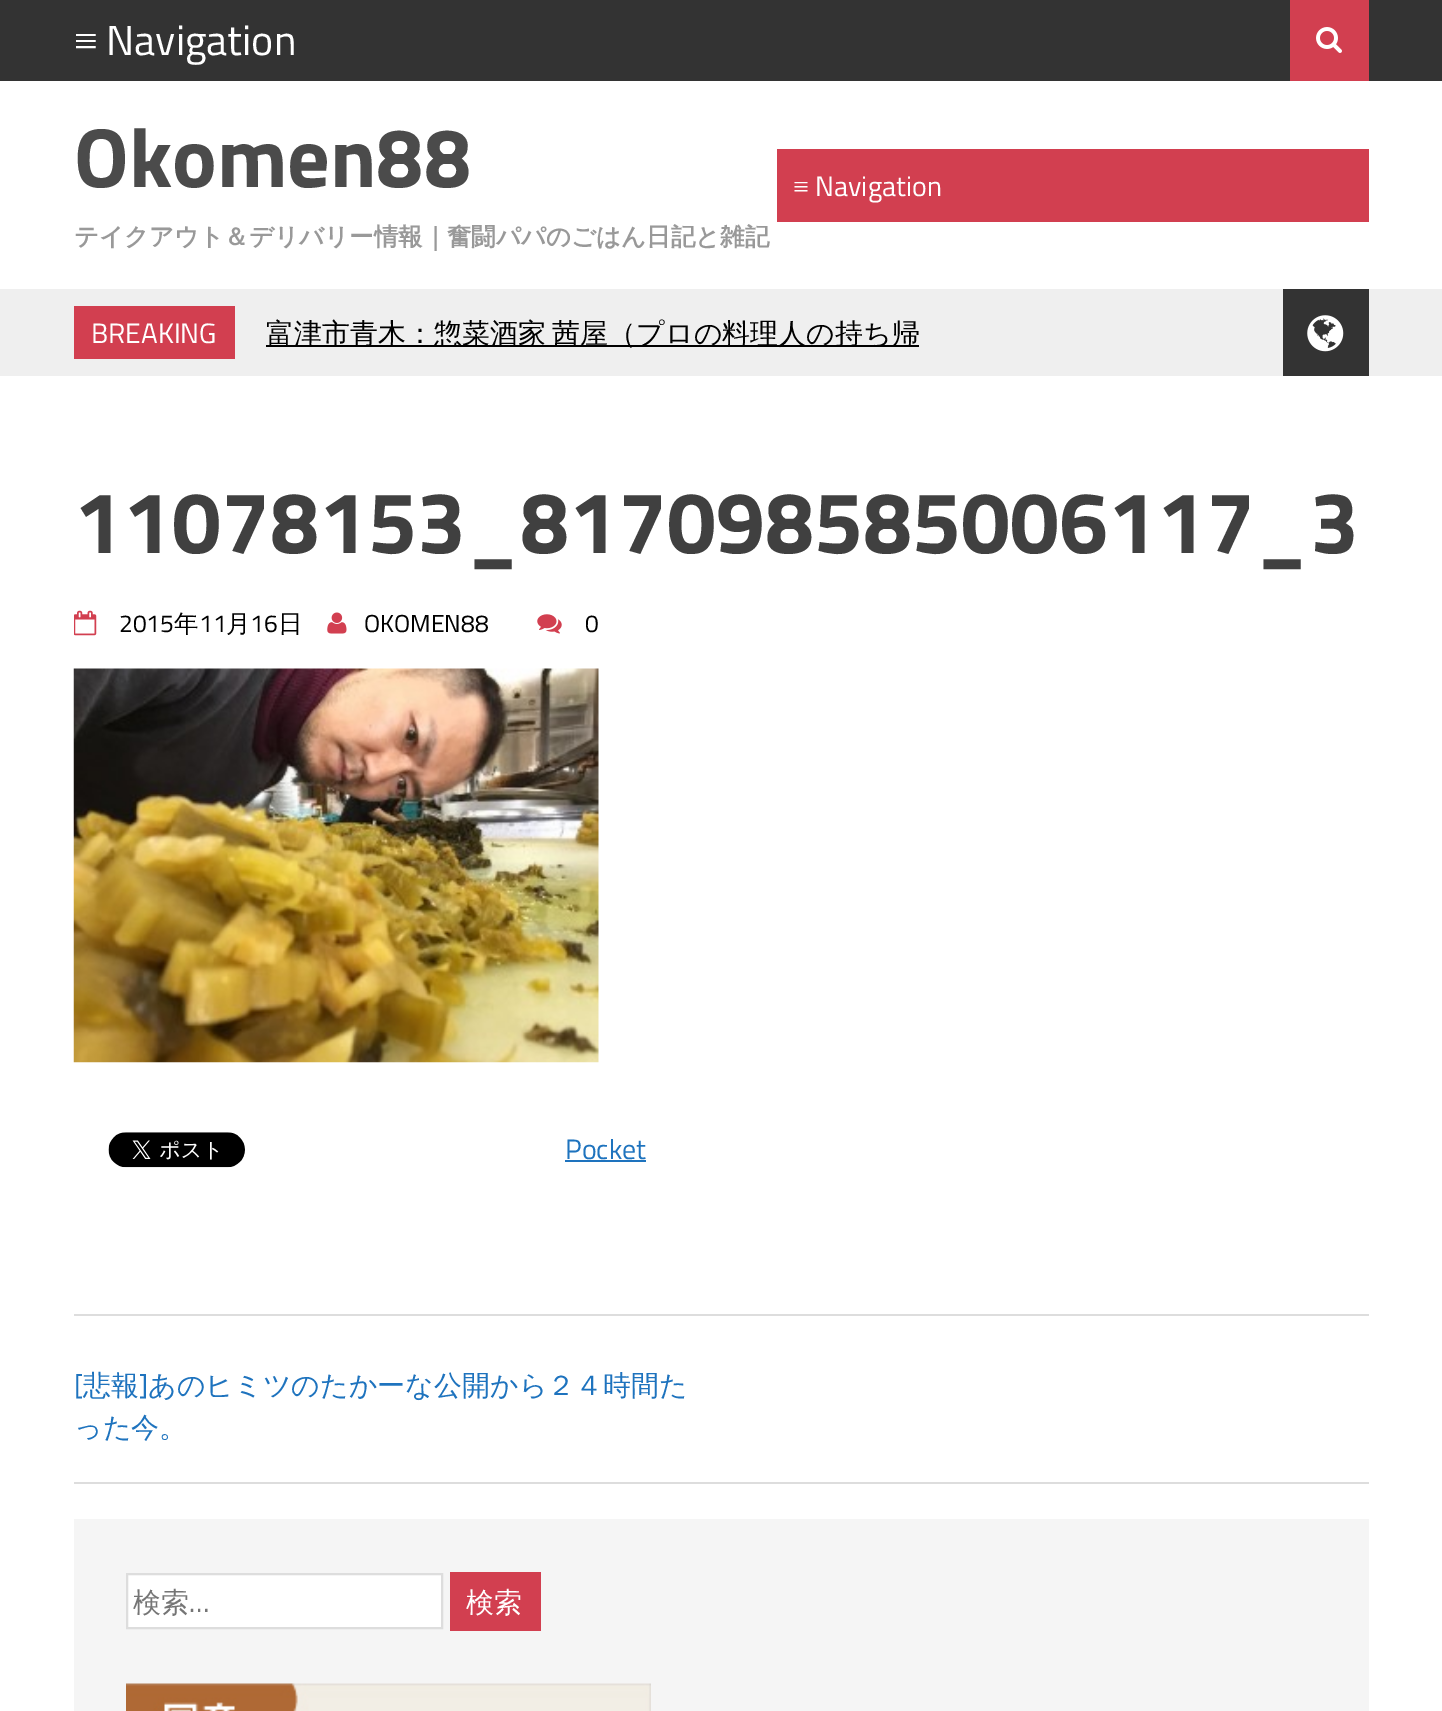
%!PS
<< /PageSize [1442 1711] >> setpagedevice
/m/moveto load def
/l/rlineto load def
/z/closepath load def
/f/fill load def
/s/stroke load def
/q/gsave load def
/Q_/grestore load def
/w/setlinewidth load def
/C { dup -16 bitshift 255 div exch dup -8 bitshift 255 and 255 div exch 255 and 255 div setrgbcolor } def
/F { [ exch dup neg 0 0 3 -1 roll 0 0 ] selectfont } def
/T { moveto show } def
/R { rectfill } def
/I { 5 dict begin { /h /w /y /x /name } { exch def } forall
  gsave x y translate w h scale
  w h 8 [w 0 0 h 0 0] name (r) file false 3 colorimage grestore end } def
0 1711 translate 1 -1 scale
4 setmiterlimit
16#FFFFFF C
0 0 1442 1711 R
16#333333 C
0 0 1442 81 R
/LiberationSerif-Regular 42 F
16#FFFFFF C
(≡) 74 55 T
/TitilliumWeb-Regular 42 F
(Navigation) 106 55 T
16#D23F50 C
1290 0 79 81 R
(1.rgb) 1316 27 26 26 I
/TitilliumWeb-Bold 84 F
16#4B4B4B C
(Okomen88) 74 187 T
/WenQuanYiZenHei-Bold 24.5 F
16#999999 C
(テイクアウト＆デリバリー情報｜奮闘パパのごはん日記と雑記) 74 245 T
16#D23F50 C
777 149 592 73 R
/LiberationSerif-Regular 28 F
16#FFFFFF C
(≡) 793 196 T
/TitilliumWeb-Regular 28 F
(Navigation) 815 196 T
16#EFEFEF C
0 289 1442 87 R
16#D23F50 C
74 306 161 53 R
16#FFFFFF C
(BREAKING) 91 343 T
16#000000 C
266 345 653 2 R
/WenQuanYiZenHei-Medium 28 F
266 343 m -2 0 32 (富津市青木：惣菜酒家 茜屋（プロの料理人の持ち帰) widthshow
16#333333 C
1283 289 86 87 R
(2.rgb) 1307 315 37 37 I
16#DDDDDD C
74 1314 1295 2 R
/TitilliumWeb-Bold 87.5 F
16#404040 C
(11078153_817098585006117_3) 74 553 T
(3.rgb) 74 610 23 26 I
/TitilliumWeb-Regular 24.5 F
16#000000 C
(2015) 119 632 T
/WenQuanYiZenHei-Medium 24.5 F
(年) 174 632 T
/TitilliumWeb-Regular 24.5 F
(11) 199 632 T
/WenQuanYiZenHei-Medium 24.5 F
(月) 226 632 T
/TitilliumWeb-Regular 24.5 F
(16) 250 632 T
/WenQuanYiZenHei-Medium 24.5 F
(日) 278 632 T
(4.rgb) 327 612 20 22 I
/TitilliumWeb-Regular 24.5 F
(OKOMEN88) 364 632 T
(5.rgb) 537 614 25 20 I
(0) 585 632 T
(6.rgb) 73 668 526 395 I
(7.rgb) 108 1132 137 36 I
/TitilliumWeb-Regular 28 F
16#1E73BE C
(Pocket) 565 1159 T
565 1160 81 2 R
16#DDDDDD C
74 1482 1295 2 R
16#1E73BE C
([) 74 1395 T
/WenQuanYiZenHei-Medium 28 F
(悲報) 83 1395 T
/TitilliumWeb-Regular 28 F
(]) 139 1395 T
/WenQuanYiZenHei-Medium 28 F
(あのヒミツのたかーな公開から２４時間た) 148 1395 T
(った今。) 74 1437 T
16#F5F5F5 C
74 1519 1295 192 R
16#FFFFFF C
127 1574 m 315 0 l 0 54 l -315 0 l z q f Q_
16#DDDDDD C
2 w
s
16#757575 C
(検索) 133 1612 T
/TitilliumWeb-Regular 28 F
(…) 189 1612 T
16#D23F50 C
450 1572 91 59 R
/WenQuanYiZenHei-Medium 28 F
16#FFFFFF C
(検索) 466 1612 T
(8.rgb) 126 1683 525 28 I
showpage
